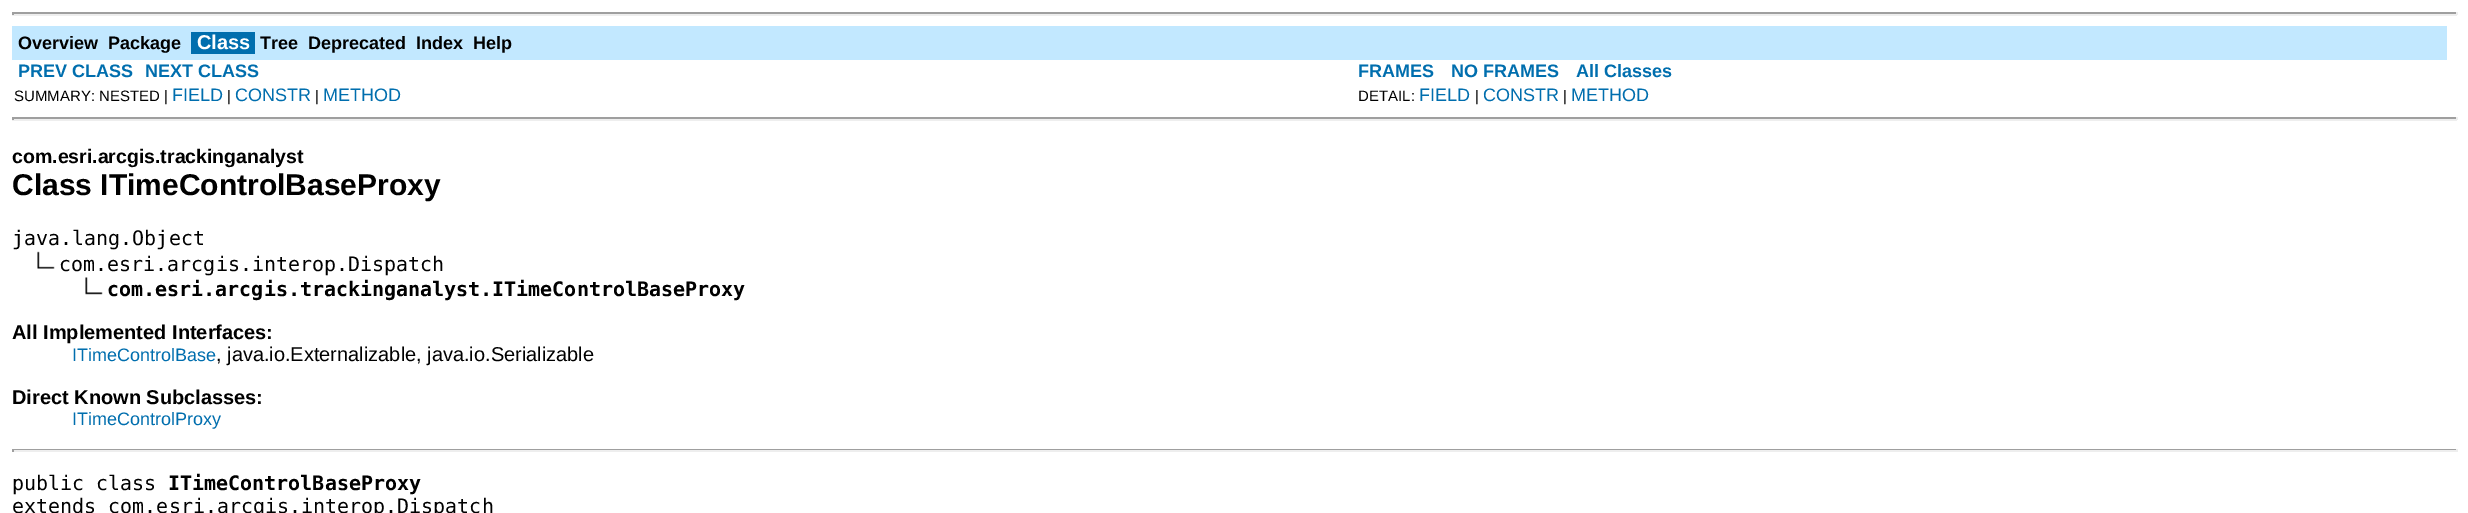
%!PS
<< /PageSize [2468 513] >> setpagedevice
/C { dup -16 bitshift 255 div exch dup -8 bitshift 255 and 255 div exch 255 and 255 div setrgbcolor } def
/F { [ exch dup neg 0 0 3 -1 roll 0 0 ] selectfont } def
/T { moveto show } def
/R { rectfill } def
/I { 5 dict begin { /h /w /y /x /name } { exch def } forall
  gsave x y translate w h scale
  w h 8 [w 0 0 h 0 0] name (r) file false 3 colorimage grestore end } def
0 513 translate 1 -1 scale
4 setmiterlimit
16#FFFFFF C
0 0 2468 513 R
16#9F9F9F C
12 12 2445 2 R
16#EEEEEE C
2456 12 2 3 R
12 14 2445 2 R
16#9F9F9F C
12 12 2 3 R
16#C2E8FF C
12 26 2435 34 R
/LiberationSans-Bold 18 F
16#000000 C
(Overview) 18 49 T
(Package) 108 49 T
16#006EAE C
191 32 64 22 R
/LiberationSans-Bold 20 F
16#FFFFFF C
(Class) 197 49 T
/LiberationSans-Bold 18 F
16#000000 C
(Tree) 260 49 T
(Deprecated) 308 49 T
(Index) 416 49 T
(Help) 473 49 T
16#006EAE C
(PREV CLASS) 18 77 T
(NEXT CLASS) 145 77 T
(FRAMES) 1358 77 T
(NO FRAMES) 1451 77 T
(All Classes) 1576 77 T
/LiberationSans-Regular 15 F
16#000000 C
(SUMMARY: NESTED |) 14 101 T
/LiberationSans-Regular 18 F
16#006EAE C
(FIELD) 172 101 T
/LiberationSans-Regular 15 F
16#000000 C
(|) 227 101 T
/LiberationSans-Regular 18 F
16#006EAE C
(CONSTR) 235 101 T
/LiberationSans-Regular 15 F
16#000000 C
(|) 315 101 T
/LiberationSans-Regular 18 F
16#006EAE C
(METHOD) 323 101 T
/LiberationSans-Regular 15 F
16#000000 C
(DETAIL:) 1358 101 T
/LiberationSans-Regular 18 F
16#006EAE C
(FIELD) 1419 101 T
/LiberationSans-Regular 15 F
16#000000 C
(|) 1475 101 T
/LiberationSans-Regular 18 F
16#006EAE C
(CONSTR) 1483 101 T
/LiberationSans-Regular 15 F
16#000000 C
(|) 1563 101 T
/LiberationSans-Regular 18 F
16#006EAE C
(METHOD) 1571 101 T
16#9F9F9F C
12 117 2445 2 R
16#EEEEEE C
2456 117 2 3 R
12 119 2445 2 R
16#9F9F9F C
12 117 2 3 R
/LiberationSans-Bold 19.5 F
16#000000 C
(com.esri.arcgis.trackinganalyst) 12 163 T
/LiberationSans-Bold 30 F
(Class ITimeControlBaseProxy) 12 195 T
/DejaVuSansMono-Regular 20 F
(java.lang.Object) 12 245 T
(1.rgb) 37 251 18 18 I
(com.esri.arcgis.interop.Dispatch) 59 271 T
(2.rgb) 85 277 18 18 I
/DejaVuSansMono-Bold 20 F
(com.esri.arcgis.trackinganalyst.ITimeControlBaseProxy) 107 296 T
/LiberationSans-Bold 20 F
(All Implemented Interfaces:) 12 339 T
/LiberationSans-Regular 18 F
16#006EAE C
(ITimeControlBase) 72 361 T
/LiberationSans-Regular 20 F
16#000000 C
(, java.io.Externalizable, java.io.Serializable) 216 361 T
/LiberationSans-Bold 20 F
(Direct Known Subclasses:) 12 404 T
/LiberationSans-Regular 18 F
16#006EAE C
(ITimeControlProxy) 72 425 T
16#9F9F9F C
12 449 2445 1 R
16#EEEEEE C
2456 449 2 3 R
12 450 2445 2 R
16#9F9F9F C
12 449 2 3 R
/DejaVuSansMono-Regular 20 F
16#000000 C
(public class) 12 490 T
/DejaVuSansMono-Bold 20 F
(ITimeControlBaseProxy) 168 490 T
/DejaVuSansMono-Regular 20 F
(extends com.esri.arcgis.interop.Dispatch) 12 513 T
showpage
